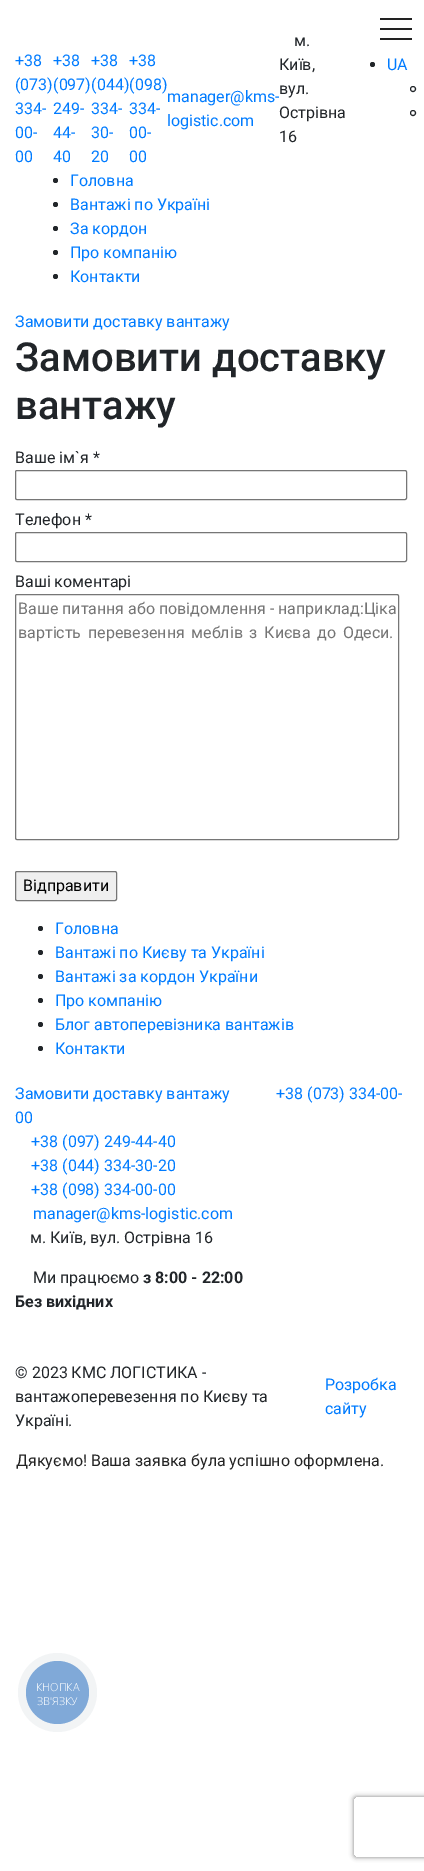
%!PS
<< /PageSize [424 1871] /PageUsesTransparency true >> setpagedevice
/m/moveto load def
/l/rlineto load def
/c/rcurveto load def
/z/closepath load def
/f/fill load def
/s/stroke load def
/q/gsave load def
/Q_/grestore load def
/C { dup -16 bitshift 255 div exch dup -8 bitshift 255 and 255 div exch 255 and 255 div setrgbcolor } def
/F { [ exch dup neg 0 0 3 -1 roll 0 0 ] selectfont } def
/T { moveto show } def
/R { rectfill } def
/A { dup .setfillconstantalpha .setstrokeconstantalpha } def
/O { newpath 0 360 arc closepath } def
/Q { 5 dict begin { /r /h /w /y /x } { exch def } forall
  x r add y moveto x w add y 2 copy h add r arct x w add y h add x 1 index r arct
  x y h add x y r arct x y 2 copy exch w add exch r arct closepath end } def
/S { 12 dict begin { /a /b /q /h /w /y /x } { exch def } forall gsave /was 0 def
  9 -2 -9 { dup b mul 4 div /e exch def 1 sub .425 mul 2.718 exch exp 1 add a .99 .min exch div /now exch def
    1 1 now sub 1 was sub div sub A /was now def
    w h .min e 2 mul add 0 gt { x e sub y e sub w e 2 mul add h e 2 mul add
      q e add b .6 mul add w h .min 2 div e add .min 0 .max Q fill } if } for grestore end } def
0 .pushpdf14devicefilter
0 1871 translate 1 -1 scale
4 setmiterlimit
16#FFFFFF C
0 0 424 1871 R
/Roboto-Regular 16 F
16#007BFF C
(+38) 15 66 T
(\(073\)\(097\)\(044\)\(098\)) 15 90 T
(334-) 15 114 T
(00-) 15 138 T
(00) 15 162 T
16#212529 C
(м.) 294 46 T
(Київ,) 279 70 T
(вул.) 279 94 T
(Острівна) 279 118 T
(16) 279 142 T
16#007BFF C
(+38) 53 66 T
(249-) 53 114 T
(44-) 53 138 T
(40) 53 162 T
(+38) 91 66 T
(334-) 91 114 T
(30-) 91 138 T
(20) 91 162 T
(+38) 129 66 T
(334-) 129 114 T
(00-) 129 138 T
(00) 129 162 T
(manager@kms-) 167 102 T
(logistic.com) 167 126 T
16#212529 C
372.5 64.5 2.5 O f
16#007BFF C
(UA) 387 70 T
16#212529 C
413 89 2.5 O s
413 113 2.5 O s
16#222222 C
380 28 32 2 R
380 18 32 2 R
380 38 32 2 R
16#212529 C
55.5 180.5 2.5 O f
16#007BFF C
(Головна) 70 186 T
16#212529 C
55.5 204.5 2.5 O f
16#007BFF C
(Вантажі по Україні) 70 210 T
16#212529 C
55.5 228.5 2.5 O f
16#007BFF C
(За кордон) 70 234 T
16#212529 C
55.5 252.5 2.5 O f
16#007BFF C
(Про компанію) 70 258 T
16#212529 C
55.5 276.5 2.5 O f
16#007BFF C
(Контакти) 70 282 T
(Замовити доставку вантажу) 15 327 T
/Roboto-Medium 40 F
16#212529 C
(Замовити доставку) 15 371 T
(вантажу) 15 419 T
/Roboto-Regular 16 F
(Ваше ім`я *) 15 463 T
16#767676 C
15.5 470.5 391 29 1.5 Q s
16#212529 C
(Телефон *) 15 525 T
16#767676 C
15.5 532.5 391 29 1.5 Q s
16#212529 C
(Ваші коментарі) 15 587 T
16#767676 C
15.5 594.5 383 245 1.5 Q s
16#757575 C
(Ваше питання або повідомлення - наприклад:Ціка) 18 614 T
18 638 m 2.75 0 32 (вартість перевезення меблів з Києва до Одеси.) widthshow
16#EFEFEF C
15.5 871.5 101 29 1.5 Q q f Q_
16#767676 C
s
16#000000 C
(Відправити) 23 891 T
16#212529 C
40.5 928.5 2.5 O f
16#007BFF C
(Головна) 55 934 T
16#212529 C
40.5 952.5 2.5 O f
16#007BFF C
(Вантажі по Києву та Україні) 55 958 T
16#212529 C
40.5 976.5 2.5 O f
16#007BFF C
(Вантажі за кордон України) 55 982 T
16#212529 C
40.5 1000.5 2.5 O f
16#007BFF C
(Про компанію) 55 1006 T
16#212529 C
40.5 1024.5 2.5 O f
16#007BFF C
(Блог автоперевізника вантажів) 55 1030 T
16#212529 C
40.5 1048.5 2.5 O f
16#007BFF C
(Контакти) 55 1054 T
(Замовити доставку вантажу) 15 1099 T
(+38 \(073\) 334-00-) 276 1099 T
(00) 15 1123 T
(+38 \(097\) 249-44-40) 31 1147 T
(+38 \(044\) 334-30-20) 31 1171 T
(+38 \(098\) 334-00-00) 31 1195 T
(manager@kms-logistic.com) 33 1219 T
16#212529 C
(м. Київ, вул. Острівна 16) 30 1243 T
(Ми працюємо) 33 1283 T
/Roboto-Bold 16 F
(з 8:00 - 22:00) 143 1283 T
(Без вихідних) 15 1307 T
/Roboto-Regular 16 F
(© 2023 КМС ЛОГІСТИКА -) 15 1378 T
(вантажоперевезення по Києву та) 15 1402 T
(Україні.) 15 1426 T
16#007BFF C
(Розробка) 325 1390 T
(сайту) 325 1414 T
16#232323 C
(Дякуємо! Ваша заявка була успішно оформлена.) 16 1466 T
16#F2F4F5 C
57.5 1692.5 39.5 O f
16#80A9D8 C
57.5 1692.5 31.5 O f
/OpenSans-Light 11 F
16#FFFFFF C
(КНОПКА) 36 1691 T
(ЗВ'ЯЗКУ) 37 1705 T
q
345 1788 m 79 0 l 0 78 l -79 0 l z 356 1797 m 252 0 l 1 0 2 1 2 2 c 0 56 l 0 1 -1 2 -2 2 c -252 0 l -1 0 -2 -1 -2 -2 c 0 -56 l 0 -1 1 -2 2 -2 c z eoclip newpath
16#808080 C
354 1797 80 60 2 2.5 1 S
Q_
.poppdf14devicefilter showpage
